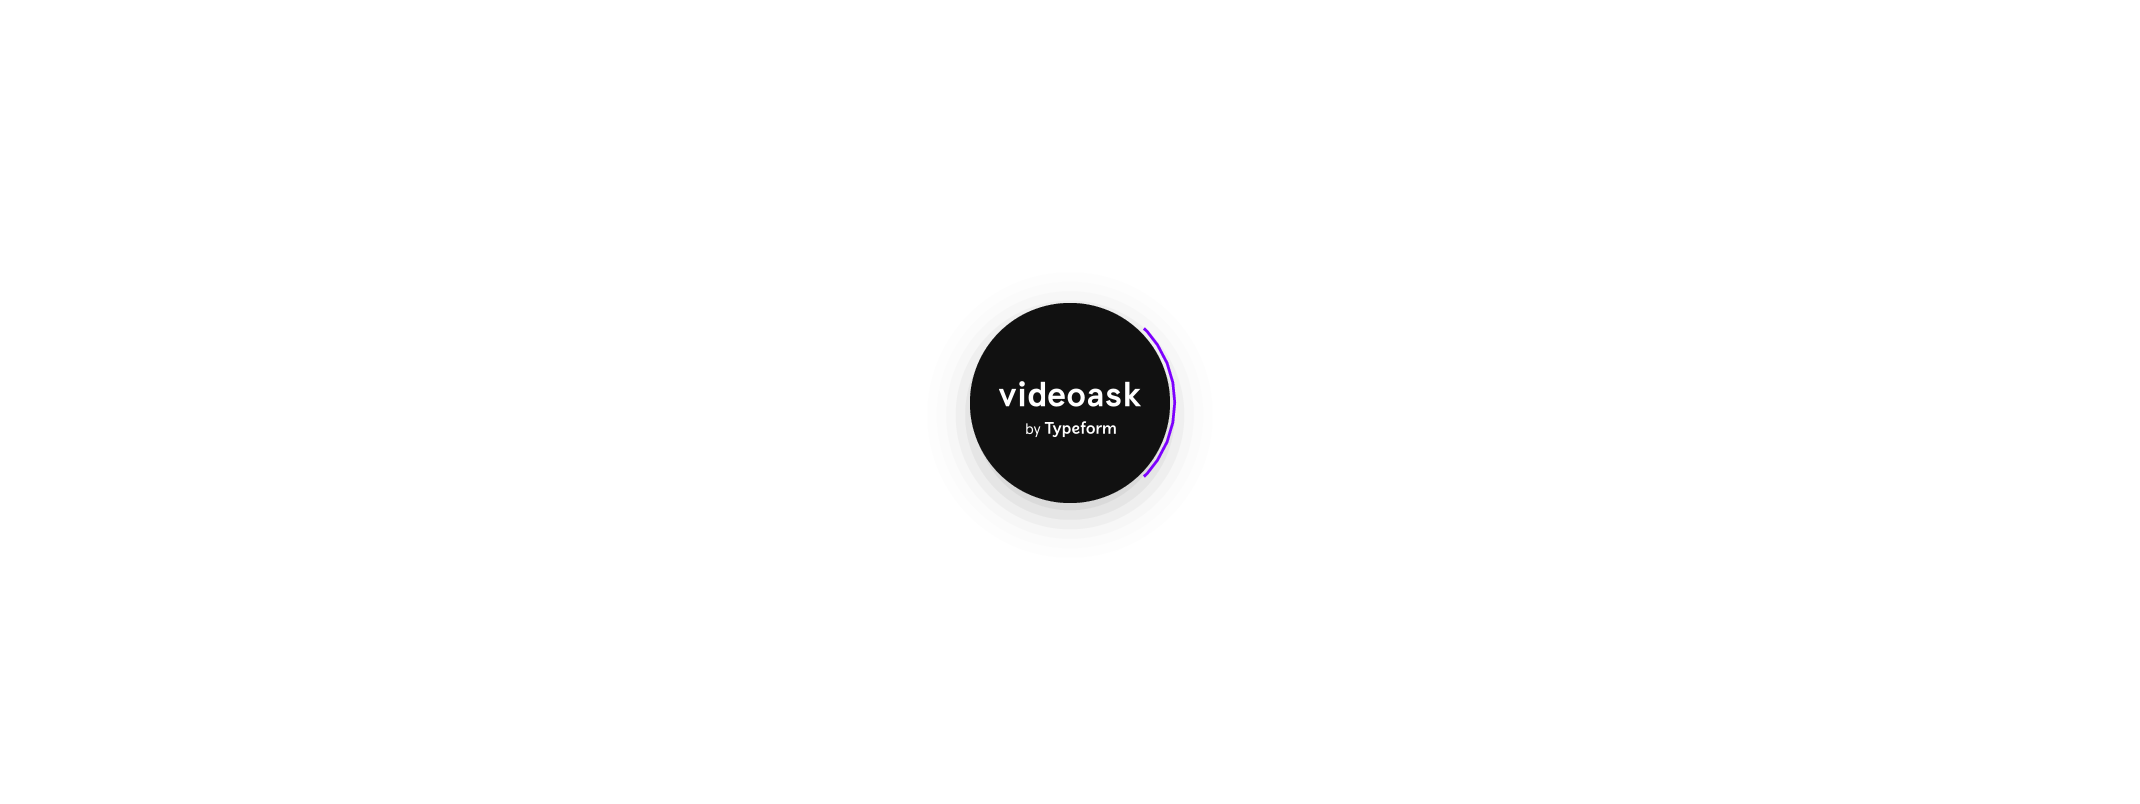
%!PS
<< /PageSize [2140 804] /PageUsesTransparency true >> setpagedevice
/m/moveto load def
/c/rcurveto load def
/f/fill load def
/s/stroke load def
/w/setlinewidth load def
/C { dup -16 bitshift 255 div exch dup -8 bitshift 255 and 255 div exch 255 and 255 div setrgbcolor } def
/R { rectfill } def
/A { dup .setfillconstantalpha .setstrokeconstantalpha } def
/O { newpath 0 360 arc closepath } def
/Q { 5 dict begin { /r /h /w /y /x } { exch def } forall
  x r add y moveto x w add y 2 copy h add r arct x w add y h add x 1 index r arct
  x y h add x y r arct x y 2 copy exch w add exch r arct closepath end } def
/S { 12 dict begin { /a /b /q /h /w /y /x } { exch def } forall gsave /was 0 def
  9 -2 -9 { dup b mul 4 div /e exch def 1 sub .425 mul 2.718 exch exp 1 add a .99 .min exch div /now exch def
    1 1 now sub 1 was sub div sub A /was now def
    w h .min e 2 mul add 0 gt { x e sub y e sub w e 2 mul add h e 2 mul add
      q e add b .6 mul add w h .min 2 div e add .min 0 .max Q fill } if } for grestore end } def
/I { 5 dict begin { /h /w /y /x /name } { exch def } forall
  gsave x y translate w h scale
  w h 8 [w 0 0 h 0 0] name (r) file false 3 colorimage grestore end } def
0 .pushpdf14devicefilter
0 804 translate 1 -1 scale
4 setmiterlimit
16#FFFFFF C
0 0 2140 804 R
16#000000 C
970 315 200 200 100 19 .21 S
16#111111 C
1070 403 100 O f
(1.rgb) 999 381 142 57 I
16#7D00FE C
2.5 w
1144 328.5 m 41 40.5 41 107.5 0 148 c s
.poppdf14devicefilter showpage
